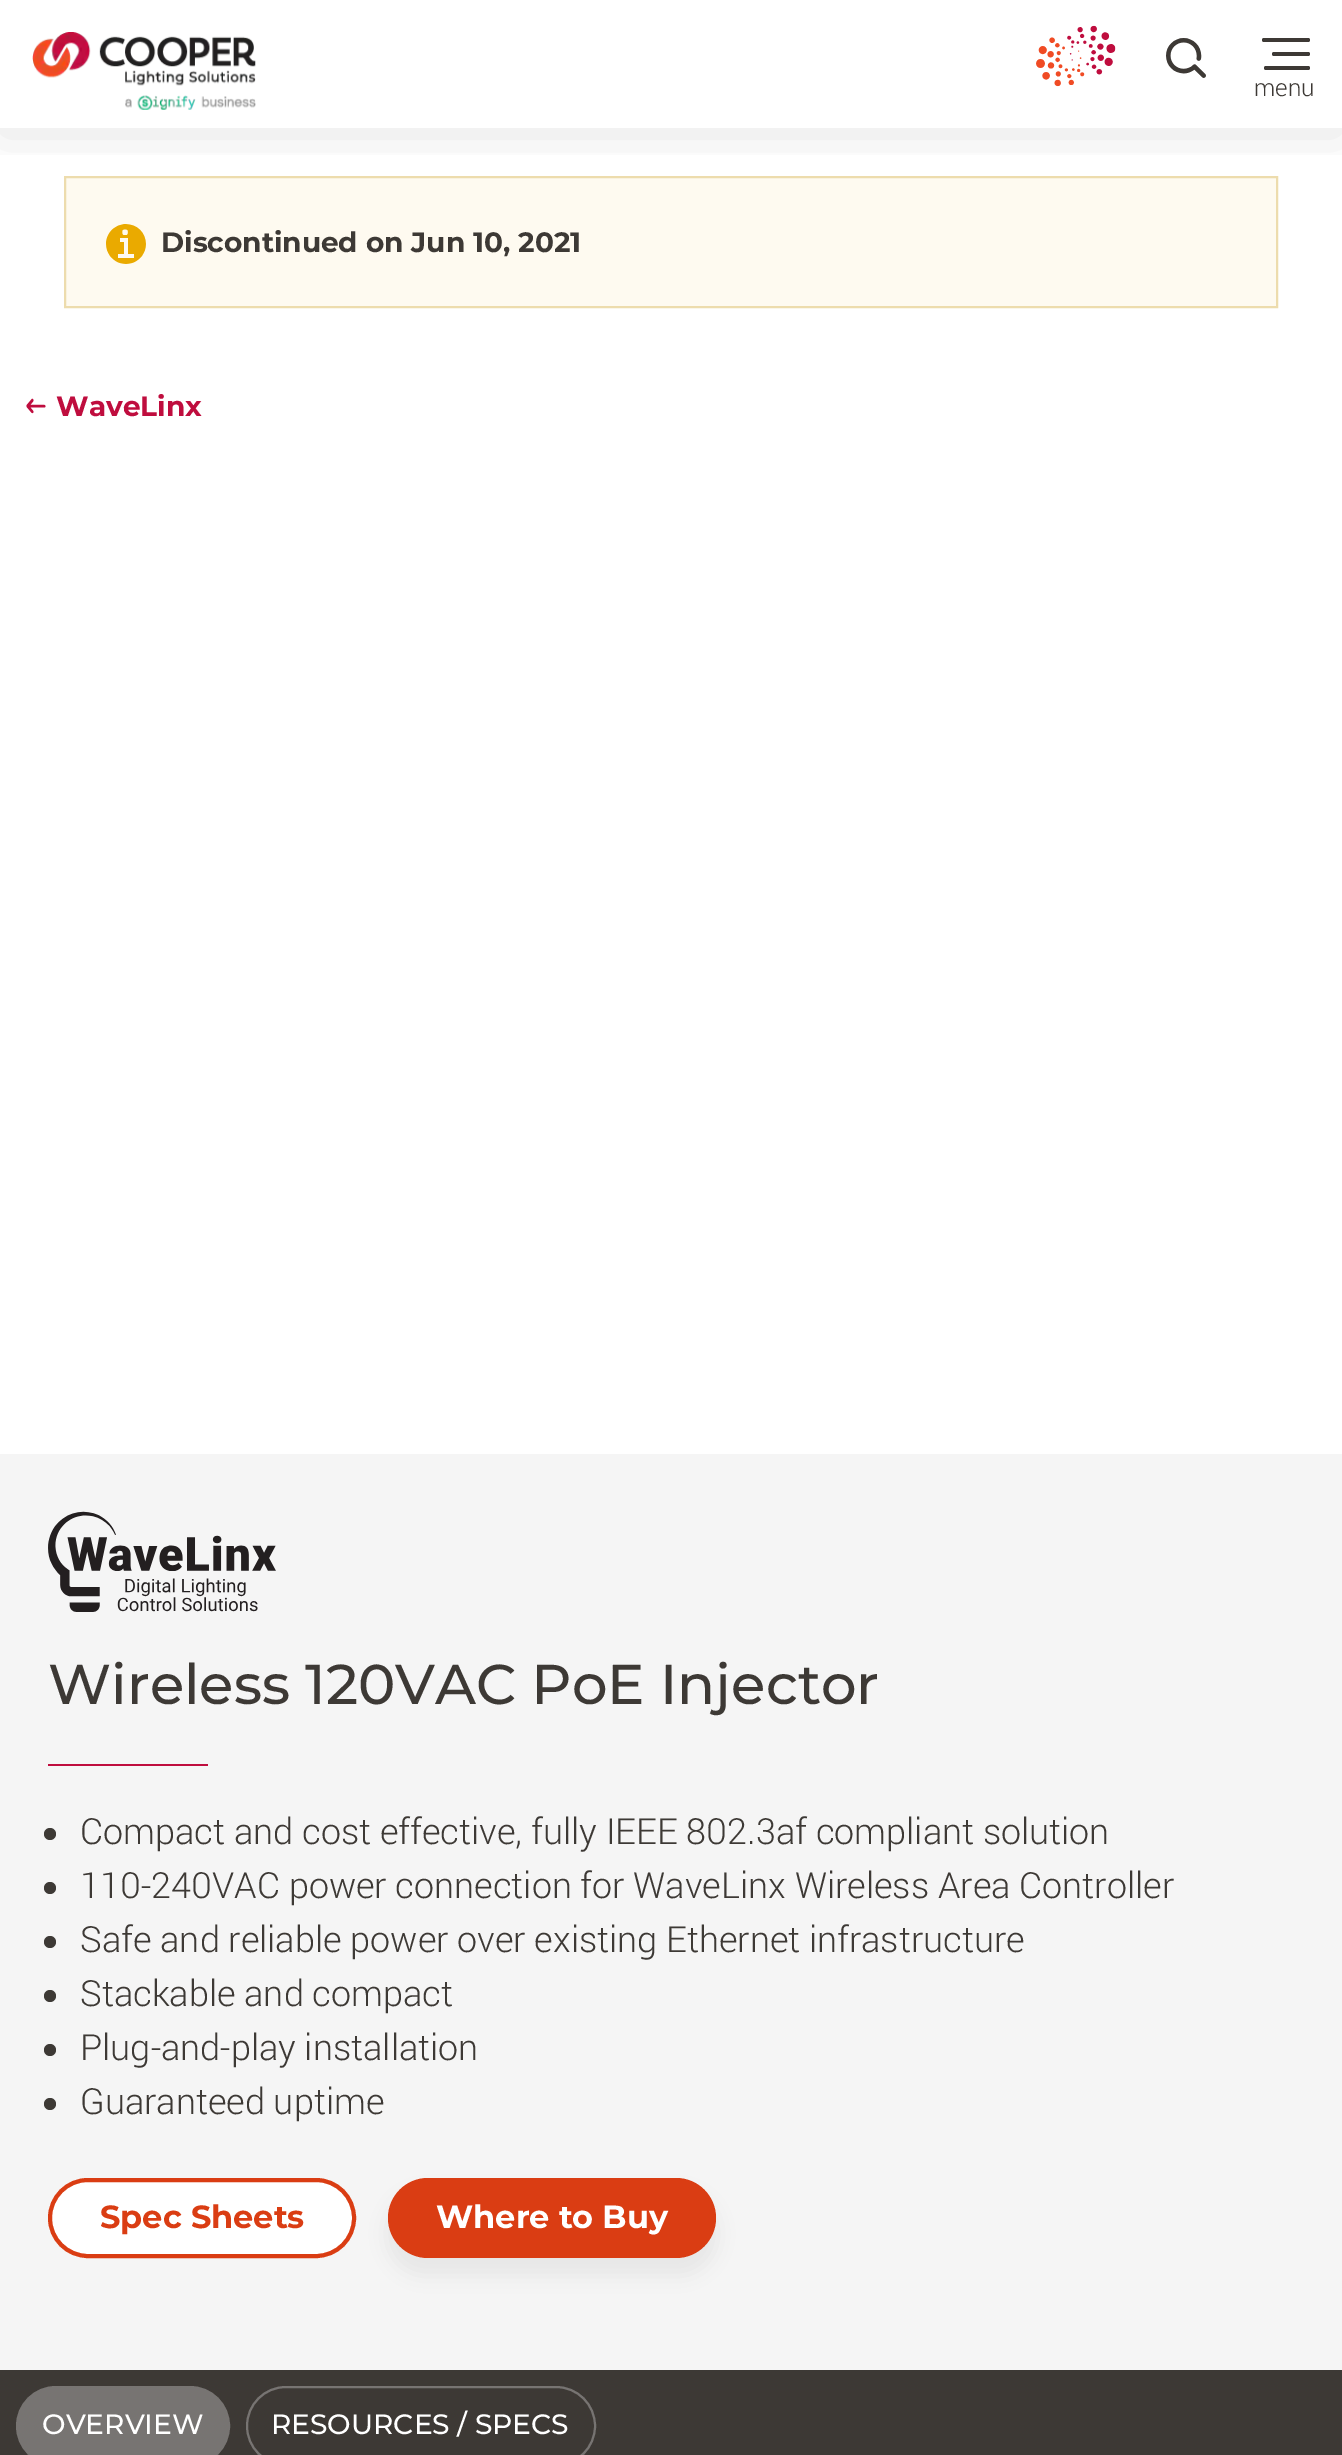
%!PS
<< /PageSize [1342 2455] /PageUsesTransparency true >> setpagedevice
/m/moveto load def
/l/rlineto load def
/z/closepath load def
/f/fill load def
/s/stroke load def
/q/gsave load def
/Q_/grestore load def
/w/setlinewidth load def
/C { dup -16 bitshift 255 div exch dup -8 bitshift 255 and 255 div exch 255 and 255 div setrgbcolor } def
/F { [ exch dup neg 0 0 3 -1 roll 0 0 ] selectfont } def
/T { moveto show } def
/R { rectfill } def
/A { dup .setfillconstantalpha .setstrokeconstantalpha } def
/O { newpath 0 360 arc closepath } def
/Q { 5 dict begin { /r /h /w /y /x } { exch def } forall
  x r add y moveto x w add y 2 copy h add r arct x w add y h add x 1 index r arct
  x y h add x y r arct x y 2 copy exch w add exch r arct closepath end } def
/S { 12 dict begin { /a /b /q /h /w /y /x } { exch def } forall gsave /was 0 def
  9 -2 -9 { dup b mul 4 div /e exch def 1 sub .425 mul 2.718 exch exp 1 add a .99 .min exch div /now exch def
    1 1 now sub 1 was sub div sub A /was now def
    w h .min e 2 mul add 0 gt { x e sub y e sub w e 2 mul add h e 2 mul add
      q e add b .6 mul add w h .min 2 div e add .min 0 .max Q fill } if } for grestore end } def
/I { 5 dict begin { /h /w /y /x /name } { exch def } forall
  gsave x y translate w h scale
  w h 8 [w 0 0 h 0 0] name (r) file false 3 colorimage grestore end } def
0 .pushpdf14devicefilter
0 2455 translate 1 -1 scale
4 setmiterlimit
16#FFFFFF C
0 0 1342 2455 R
16#FEFAF0 C
65 177 m 1212 0 l 0 130 l -1212 0 l z q f Q_
16#EDDCAD C
2 w
s
q
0 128 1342 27 rectclip
16#000000 C
0 6 1342 128 0 25 .1 S
Q_
(1.rgb) 32 32 224 78 I
(2.rgb) 1036 25 80 62 I
(3.rgb) 1166 38 40 40 I
16#3D3935 C
1262 38 48 4 2 Q f
1272 52 38 4 2 Q f
1264 66 46 4 2 Q f
/Roboto-Light 24 F
(menu) 1254 96 T
(4.rgb) 106 224 40 40 I
/Montserrat-Bold 28 F
(Discontinued on Jun 10, 2021) 161 252 T
(5.rgb) 26 398 20 16 I
16#BF0D3E C
(WaveLinx) 56 416 T
16#F5F5F5 C
0 1454 1342 916 R
(6.rgb) 48 1511 228 101 I
/Montserrat-Medium 56 F
16#3D3935 C
(Wireless 120VAC PoE Injector) 48 1704 T
16#BF0D3E C
48 1764 160 2 R
16#3D3935 C
50 1834 6 O f
/Roboto-Light 36 F
(Compact and cost effective, fully IEEE 802.3af compliant solution) 80 1844 T
50 1888 6 O f
(110-240VAC power connection for WaveLinx Wireless Area Controller) 80 1898 T
50 1942 6 O f
(Safe and reliable power over existing Ethernet infrastructure) 80 1952 T
50 1996 6 O f
(Stackable and compact) 80 2006 T
50 2050 6 O f
(Plug-and-play installation) 80 2060 T
50 2104 6 O f
(Guaranteed uptime) 80 2114 T
16#FFFFFF C
50 2180 304 76 38 Q q f Q_
16#DA3D13 C
4 w
s
/Montserrat-Bold 32 F
(Spec Sheets) 100 2228 T
16#000000 C
386 2192 332 84 42 10 .05 S
16#DA3D13 C
388 2178 328 80 40 Q f
16#FFFFFF C
(Where to Buy) 436 2228 T
16#3D3935 C
0 2370 1342 85 R
16#777472 C
17 2387 212 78 39 Q q f Q_
2 w
s
/Montserrat-Medium 28 F
16#FFFFFF C
(OVERVIEW) 42 2434 T
16#777472 C
247 2387 348 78 39 Q s
16#FFFFFF C
(RESOURCES / SPECS) 271 2434 T
.poppdf14devicefilter showpage
